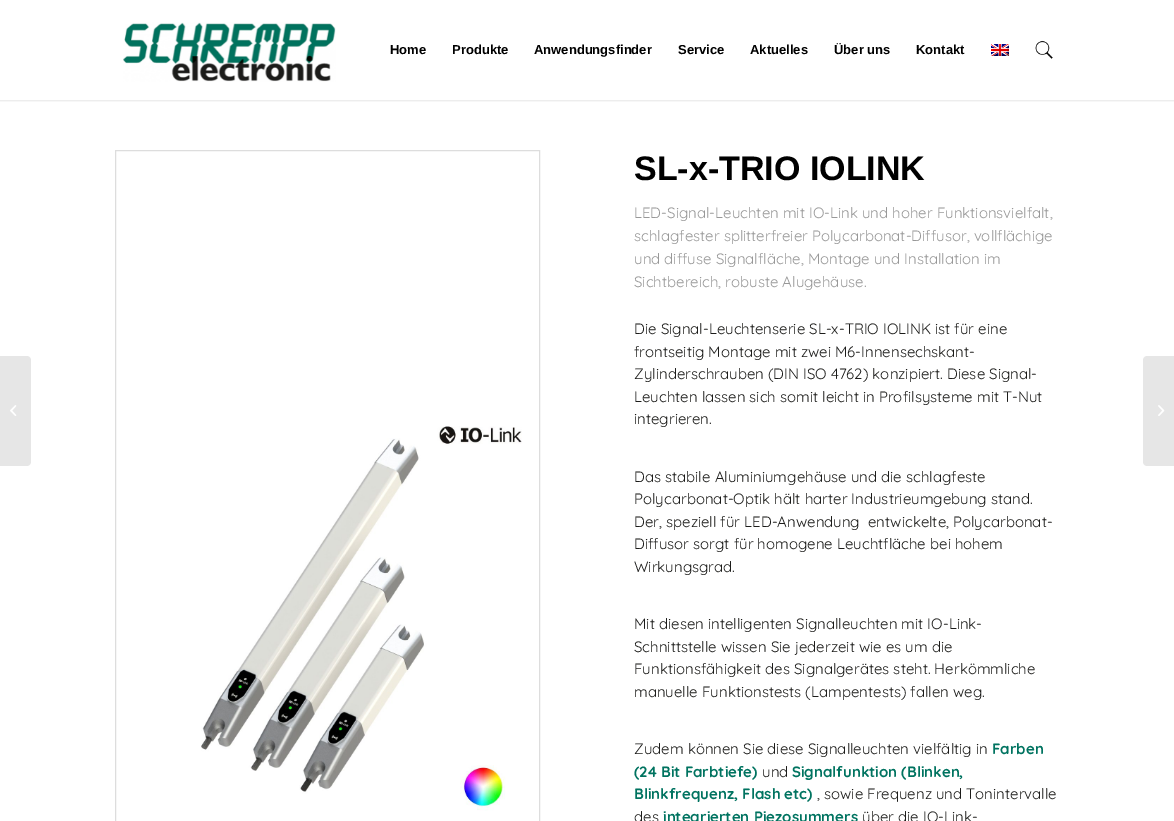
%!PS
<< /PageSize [1174 821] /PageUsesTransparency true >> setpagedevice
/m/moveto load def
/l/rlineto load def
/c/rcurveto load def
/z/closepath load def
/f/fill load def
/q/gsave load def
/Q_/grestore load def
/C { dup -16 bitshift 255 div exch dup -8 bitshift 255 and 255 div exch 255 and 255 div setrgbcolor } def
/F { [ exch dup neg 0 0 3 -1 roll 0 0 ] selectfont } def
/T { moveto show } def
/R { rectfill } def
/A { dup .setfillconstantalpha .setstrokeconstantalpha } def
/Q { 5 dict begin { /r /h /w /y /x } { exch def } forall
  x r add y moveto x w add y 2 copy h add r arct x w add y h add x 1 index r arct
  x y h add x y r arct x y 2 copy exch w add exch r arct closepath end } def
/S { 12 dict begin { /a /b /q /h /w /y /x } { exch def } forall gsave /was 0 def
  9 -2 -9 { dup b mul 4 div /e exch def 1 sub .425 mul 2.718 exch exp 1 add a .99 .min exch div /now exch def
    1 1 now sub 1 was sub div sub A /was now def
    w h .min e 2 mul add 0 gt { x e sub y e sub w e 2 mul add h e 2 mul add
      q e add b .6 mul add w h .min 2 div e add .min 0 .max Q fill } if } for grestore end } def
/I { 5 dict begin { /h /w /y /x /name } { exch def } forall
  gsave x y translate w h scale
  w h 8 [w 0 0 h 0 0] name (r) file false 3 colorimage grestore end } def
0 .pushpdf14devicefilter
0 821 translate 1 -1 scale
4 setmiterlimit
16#FFFFFF C
0 0 1174 821 R
q
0 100 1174 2 rectclip
16#000000 C
-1 -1 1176 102 0 1 .1 S
Q_
(1.rgb) 123 22 213 60 I
/LiberationSans-Bold 13 F
16#000000 C
(Home) 390 54 T
(Produkte) 452 54 T
(Anwendungsfinder) 534 54 T
(Service) 678 54 T
(Aktuelles) 750 54 T
(Über uns) 834 54 T
(Kontakt) 916 54 T
(2.rgb) 991 44 18 12 I
(3.rgb) 1035 40 18 19 I
16#E6E6E6 C
0 356 m 27 0 l 2 0 4 2 4 4 c 0 102 l 0 2 -2 4 -4 4 c -27 0 l z f
(4.rgb) 10 405 7 11 I
16#DDDDDD C
115.5 150.5 424 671 rectstroke
(5.rgb) 201 426 321 385 I
/LiberationSans-Bold 34 F
16#000000 C
(SL-x-TRIO IOLINK) 634 180 T
/Quicksand-Regular 15 F
16#989898 C
(LED-Signal-Leuchten mit IO-Link und hoher Funktionsvielfalt,) 634 218 T
(schlagfester splitterfreier Polycarbonat-Diffusor, vollflächige) 634 241 T
(und diffuse Signalfläche, Montage und Installation im) 634 264 T
(Sichtbereich, robuste Alugehäuse.) 634 287 T
16#1C1C1A C
(Die Signal-Leuchtenserie SL-x-TRIO IOLINK ist für eine) 634 334 T
(frontseitig Montage mit zwei M6-Innensechskant-) 634 357 T
(Zylinderschrauben \(DIN ISO 4762\) konzipiert. Diese Signal-) 634 379 T
(Leuchten lassen sich somit leicht in Profilsysteme mit T-Nut) 634 402 T
(integrieren.) 634 424 T
(Das stabile Aluminiumgehäuse und die schlagfeste) 634 482 T
(Polycarbonat-Optik hält harter Industrieumgebung stand.) 634 504 T
(Der, speziell für LED-Anwendung  entwickelte, Polycarbonat-) 634 527 T
(Diffusor sorgt für homogene Leuchtfläche bei hohem) 634 549 T
(Wirkungsgrad.) 634 572 T
(Mit diesen intelligenten Signalleuchten mit IO-Link-) 634 629 T
(Schnittstelle wissen Sie jederzeit wie es um die) 634 652 T
(Funktionsfähigkeit des Signalgerätes steht. Herkömmliche) 634 674 T
(manuelle Funktionstests \(Lampentests\) fallen weg.) 634 697 T
(Zudem können Sie diese Signalleuchten vielfältig in) 634 754 T
/Quicksand-Bold 15 F
16#007360 C
(Farben) 992 754 T
(\(24 Bit Farbtiefe\)) 634 777 T
/Quicksand-Regular 15 F
16#1C1C1A C
(und) 762 777 T
/Quicksand-Bold 15 F
16#007360 C
(Signalfunktion \(Blinken,) 792 777 T
(Blinkfrequenz, Flash etc\)) 634 799 T
/Quicksand-Regular 15 F
16#1C1C1A C
(, sowie Frequenz und Tonintervalle) 817 799 T
(des) 634 822 T
/Quicksand-Bold 15 F
16#007360 C
(integrierten Piezosummers) 663 822 T
/Quicksand-Regular 15 F
16#1C1C1A C
(über die IO-Link-) 862 822 T
16#E6E6E6 C
1147 356 m 27 0 l 0 110 l -27 0 l -2 0 -4 -2 -4 -4 c 0 -102 l 0 -2 2 -4 4 -4 c z f
(6.rgb) 1158 405 7 11 I
.poppdf14devicefilter showpage
